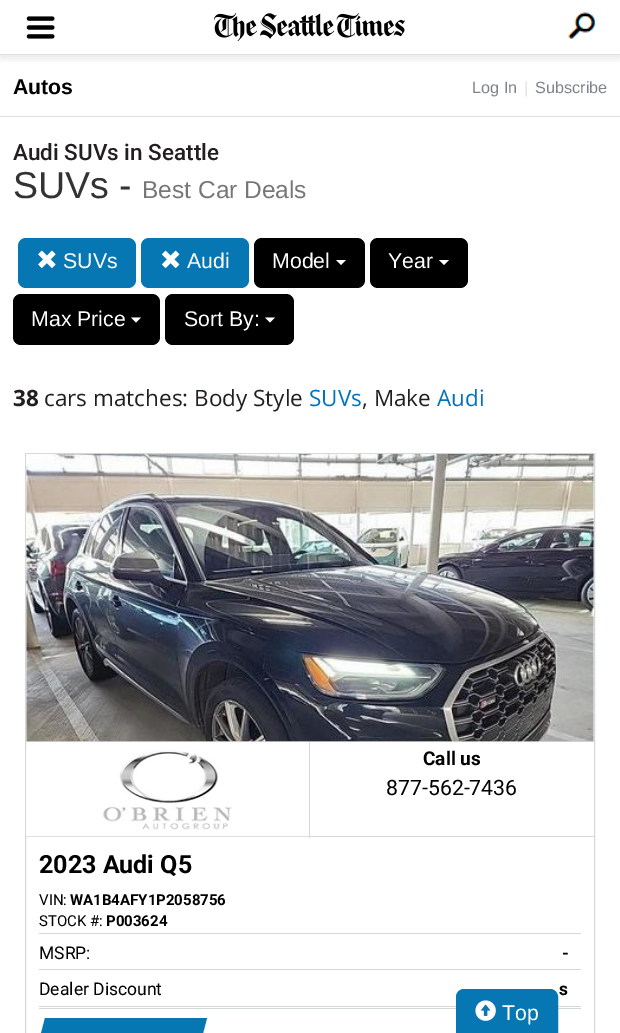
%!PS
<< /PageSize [620 1033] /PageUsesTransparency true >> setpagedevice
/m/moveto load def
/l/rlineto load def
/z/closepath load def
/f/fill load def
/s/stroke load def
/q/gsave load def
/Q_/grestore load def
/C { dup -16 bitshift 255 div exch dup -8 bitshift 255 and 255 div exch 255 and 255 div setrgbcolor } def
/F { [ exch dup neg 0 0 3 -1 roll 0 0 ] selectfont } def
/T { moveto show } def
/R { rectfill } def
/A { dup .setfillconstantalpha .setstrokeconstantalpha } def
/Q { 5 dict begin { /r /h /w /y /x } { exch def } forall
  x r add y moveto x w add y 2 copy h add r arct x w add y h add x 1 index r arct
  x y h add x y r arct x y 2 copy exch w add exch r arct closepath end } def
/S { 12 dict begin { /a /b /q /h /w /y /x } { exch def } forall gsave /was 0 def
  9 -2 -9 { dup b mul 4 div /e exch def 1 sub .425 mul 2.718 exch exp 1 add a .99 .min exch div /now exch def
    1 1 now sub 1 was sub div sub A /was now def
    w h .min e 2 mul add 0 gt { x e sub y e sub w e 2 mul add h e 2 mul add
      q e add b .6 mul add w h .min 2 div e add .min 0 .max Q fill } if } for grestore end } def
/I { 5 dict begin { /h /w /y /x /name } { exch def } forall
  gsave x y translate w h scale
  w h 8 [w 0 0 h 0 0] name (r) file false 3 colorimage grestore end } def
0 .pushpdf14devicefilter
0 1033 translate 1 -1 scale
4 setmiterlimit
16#FFFFFF C
0 0 620 1033 R
q
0 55 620 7 rectclip
16#000000 C
0 3 620 55 0 4.5 .1 S
Q_
16#E0E0E0 C
0 54 620 1 R
(1.rgb) 26 16 29 23 I
(2.rgb) 214 13 192 28 I
(3.rgb) 568 12 27 27 I
0 116 620 1 R
/LiberationSans-Bold 21.25 F
16#000000 C
(Autos) 13 94 T
/LiberationSans-Regular 16.25 F
16#7E838B C
(Log In) 472 93 T
16#E0E0E0 C
(|) 524 93 T
16#7E838B C
(Subscribe) 535 93 T
/Roboto-Medium 22.5 F
16#231F20 C
(Audi SUVs in Seattle) 13 160 T
/LiberationSans-Regular 37.5 F
16#333333 C
(SUVs -) 13 198 T
/LiberationSans-Regular 24.5 F
16#777777 C
(Best Car Deals) 142 198 T
16#0777B3 C
18 238 118 50 8 Q f
(4.rgb) 38 250 18 18 I
/LiberationSans-Regular 21.25 F
16#FFFFFF C
(SUVs) 63 268 T
16#0777B3 C
141 238 108 50 8 Q f
(5.rgb) 162 250 18 18 I
16#FFFFFF C
(Audi) 187 268 T
16#000000 C
254 238 111 50 8 Q f
16#FFFFFF C
(Model) 272 268 T
336 260 m 10 0 l -5 5 l z f
16#000000 C
370 238 98 50 8 Q f
16#FFFFFF C
(Year) 388 268 T
439 260 m 10 0 l -5 5 l z f
16#000000 C
13 294 147 51 8 Q f
16#FFFFFF C
(Max Price) 31 326 T
131 317.5 m 10 0 l -5 5 l z f
16#000000 C
165 294 129 51 8 Q f
16#FFFFFF C
(Sort By:) 184 326 T
265 317.5 m 10 0 l -5 5 l z f
/OpenSans-Bold 22.5 F
16#231F20 C
(38) 13 406 T
/OpenSans-Regular 22.5 F
(cars matches: Body Style) 44 406 T
16#0073BD C
(SUVs) 309 406 T
16#231F20 C
(, Make) 362 406 T
16#0073BD C
(Audi) 437 406 T
16#D4D8D9 C
25.5 453.5 569 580 rectstroke
26 741 568 1 R
309 741 1 97 R
(6.rgb) 26 453 568 289 I
26 836 568 1 R
(7.rgb) 26 750 283 87 I
/Roboto-Bold 19 F
16#000000 C
(Call us) 423 765 T
/Roboto-Regular 21.25 F
(877-562-7436) 386 795 T
/Roboto-Bold 25 F
(2023 Audi Q5) 39 873 T
/Roboto-Regular 15 F
(VIN:) 39 905 T
/Roboto-Bold 15 F
(WA1B4AFY1P2058756) 70 905 T
/Roboto-Regular 15 F
(STOCK #:) 39 926 T
/Roboto-Bold 15 F
(P003624) 106 926 T
16#D4D8D9 C
39 933 542 1 R
39 969 542 1 R
/Roboto-Regular 17.5 F
16#000000 C
(MSRP:) 39 959 T
/Roboto-Bold 17.5 F
(-) 562 959 T
16#D4D8D9 C
39 1006 542 1 R
/Roboto-Regular 17.5 F
16#000000 C
(Dealer Discount) 39 995 T
/Roboto-Bold 17.5 F
(s) 559 995 T
16#D4D8D9 C
39 1008 542 1 R
16#0777B3 C
45 1018 m 162 0 l -13 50 l -162 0 l z f
456.5 989.5 101 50 7.5 Q q f Q_
s
(8.rgb) 475 1000 21 21 I
/LiberationSans-Regular 21.25 F
16#FFFFFF C
(Top) 502 1020 T
.poppdf14devicefilter showpage
